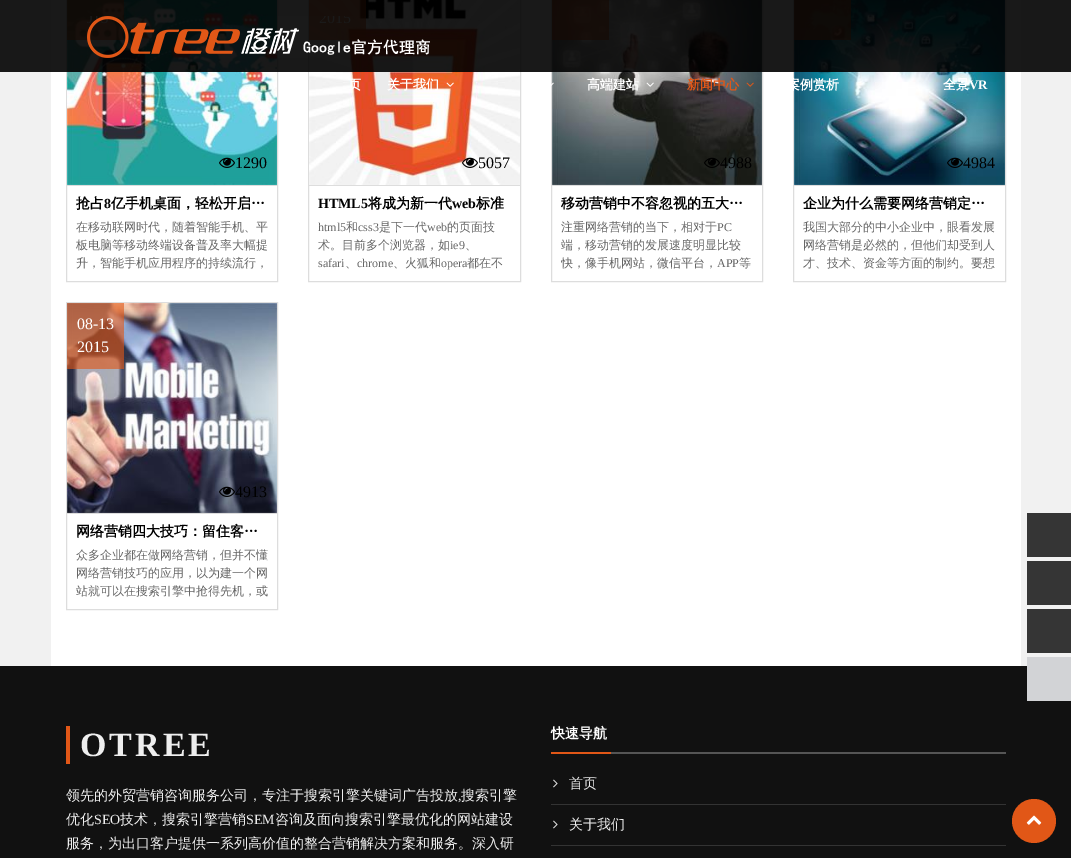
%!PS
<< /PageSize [1071 858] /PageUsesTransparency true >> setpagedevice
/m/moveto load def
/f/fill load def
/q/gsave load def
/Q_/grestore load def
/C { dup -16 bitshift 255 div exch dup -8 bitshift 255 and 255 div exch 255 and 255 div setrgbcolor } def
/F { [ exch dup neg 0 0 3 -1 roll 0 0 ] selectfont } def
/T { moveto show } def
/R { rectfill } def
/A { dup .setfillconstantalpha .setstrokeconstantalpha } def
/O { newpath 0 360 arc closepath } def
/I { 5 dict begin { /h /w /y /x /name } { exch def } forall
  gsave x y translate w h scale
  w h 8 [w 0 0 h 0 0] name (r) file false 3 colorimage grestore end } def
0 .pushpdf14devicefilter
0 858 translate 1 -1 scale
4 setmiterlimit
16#F1F1F1 C
0 0 1071 858 R
16#FFFFFF C
51 0 970 666 R
16#DDDDDD C
66.5 -.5 211 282 rectstroke
(6.rgb) 67 0 210 185 I
0.62 A
16#E05717 C
67 0 57 40 R
1 A
16#DDDDDD C
308.5 -.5 212 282 rectstroke
(8.rgb) 309 0 211 185 I
0.62 A
16#E05717 C
309 0 57 40 R
1 A
16#DDDDDD C
551.5 -.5 211 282 rectstroke
(10.rgb) 552 0 210 185 I
0.62 A
16#E05717 C
552 0 57 40 R
1 A
16#DDDDDD C
793.5 -.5 212 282 rectstroke
(12.rgb) 794 0 211 185 I
0.62 A
16#E05717 C
794 0 57 40 R
0.9 A
16#000000 C
0 0 1071 72 R
1 A
(1.rgb) 87 16 343 42 I
/WenQuanYiZenHei-Bold 13 F
16#FFFFFF C
(页) 348 89 T
(关于我们) 387 89 T
(2.rgb) 446 82 8 5 I
(3.rgb) 551 82 3 4 I
(高端建站) 587 89 T
(4.rgb) 646 82 8 5 I
16#E15717 C
(新闻中心) 687 89 T
(5.rgb) 746 82 8 5 I
16#FFFFFF C
(案例赏析) 787 89 T
(全景) 943 89 T
/LiberationSerif-Bold 13 F
(VR) 969 89 T
(7.rgb) 219 157 16 11 I
/LiberationSerif-Regular 16 F
16#000000 C
(1290) 235 168 T
16#DDDDDD C
67 185 210 1 R
/WenQuanYiZenHei-Bold 14 F
16#000000 C
(抢占) 76 208 T
/LiberationSerif-Bold 14 F
(8) 104 208 T
/WenQuanYiZenHei-Bold 14 F
(亿手机桌面，轻松开启…) 111 208 T
/WenQuanYiZenHei-Medium 12 F
16#666666 C
(在移动联网时代，随着智能手机、平) 76 231 T
q
76 218 192 54 rectclip
(板电脑等移动终端设备普及率大幅提) 76 249 T
Q_
(升，智能手机应用程序的持续流行，) 76 267 T
(9.rgb) 462 157 16 11 I
/LiberationSerif-Regular 16 F
16#000000 C
(5057) 478 168 T
16#DDDDDD C
309 185 211 1 R
/LiberationSerif-Bold 14 F
16#000000 C
(HTML5) 318 208 T
/WenQuanYiZenHei-Bold 14 F
(将成为新一代) 368 208 T
/LiberationSerif-Bold 14 F
(web) 452 208 T
/WenQuanYiZenHei-Bold 14 F
(标准) 476 208 T
/LiberationSerif-Regular 12 F
16#666666 C
(html5) 318 231 T
/WenQuanYiZenHei-Medium 12 F
(和) 346 231 T
/LiberationSerif-Regular 12 F
(css3) 358 231 T
/WenQuanYiZenHei-Medium 12 F
(是下一代) 379 231 T
/LiberationSerif-Regular 12 F
(web) 427 231 T
/WenQuanYiZenHei-Medium 12 F
(的页面技) 447 231 T
(术。目前多个浏览器，如) 318 249 T
/LiberationSerif-Regular 12 F
(ie9) 450 249 T
/WenQuanYiZenHei-Medium 12 F
(、) 465 249 T
/LiberationSerif-Regular 12 F
(safari) 318 267 T
/WenQuanYiZenHei-Medium 12 F
(、) 345 267 T
/LiberationSerif-Regular 12 F
(chrome) 357 267 T
/WenQuanYiZenHei-Medium 12 F
(、火狐和) 393 267 T
/LiberationSerif-Regular 12 F
(opera) 441 267 T
/WenQuanYiZenHei-Medium 12 F
(都在不) 467 267 T
(11.rgb) 704 157 16 11 I
/LiberationSerif-Regular 16 F
16#000000 C
(4988) 720 168 T
16#DDDDDD C
552 185 210 1 R
/WenQuanYiZenHei-Bold 14 F
16#000000 C
(移动营销中不容忽视的五大…) 561 208 T
/WenQuanYiZenHei-Medium 12 F
16#666666 C
(注重网络营销的当下，相对于) 561 231 T
/LiberationSerif-Regular 12 F
(PC) 717 231 T
q
561 218 192 54 rectclip
/WenQuanYiZenHei-Medium 12 F
(端，移动营销的发展速度明显比较) 561 249 T
(快，像手机网站，微信平台，) 561 267 T
Q_
(APP) 717 267 T
/WenQuanYiZenHei-Medium 12 F
(等) 739 267 T
(13.rgb) 947 157 16 11 I
/LiberationSerif-Regular 16 F
16#000000 C
(4984) 963 168 T
16#DDDDDD C
794 185 211 1 R
/WenQuanYiZenHei-Bold 14 F
16#000000 C
(企业为什么需要网络营销定…) 803 208 T
/WenQuanYiZenHei-Medium 12 F
16#666666 C
(我国大部分的中小企业中，眼看发展) 803 231 T
(网络营销是必然的，但他们却受到人) 803 249 T
(才、技术、资金等方面的制约。要想) 803 267 T
16#DDDDDD C
66.5 302.5 211 307 rectstroke
(14.rgb) 67 303 210 210 I
0.62 A
16#E05717 C
67 303 57 66 R
/LiberationSerif-Regular 16 F
1 A
16#FFFFFF C
(08-13) 77 329 T
(2015) 77 352 T
(15.rgb) 219 486 16 11 I
16#000000 C
(4913) 235 497 T
16#DDDDDD C
67 513 210 1 R
/WenQuanYiZenHei-Bold 14 F
16#000000 C
(网络营销四大技巧：留住客…) 76 536 T
/WenQuanYiZenHei-Medium 12 F
16#666666 C
(众多企业都在做网络营销，但并不懂) 76 559 T
(网络营销技巧的应用，以为建一个网) 76 577 T
(站就可以在搜索引擎中抢得先机，或) 76 595 T
16#353535 C
1027 513 44 44 R
1027 561 44 44 R
1027 609 44 44 R
16#111111 C
0 666 1071 192 R
16#D2D3D6 C
1027 657 44 44 R
16#E15717 C
66 726 4 38 R
/LiberationSerif-Bold 34 F
16#EEEEEE C
80 756 m 3 0 (OTREE) ashow
/WenQuanYiZenHei-Medium 14 F
(领先的外贸营销咨询服务公司，专注于搜索引擎关键词广告投放) 66 800 T
/LiberationSerif-Regular 14 F
(,) 458 800 T
/WenQuanYiZenHei-Medium 14 F
(搜索引擎) 461 800 T
(优化) 66 824 T
/LiberationSerif-Regular 14 F
(SEO) 94 824 T
/WenQuanYiZenHei-Medium 14 F
(技术，搜索引擎营销) 120 824 T
/LiberationSerif-Regular 14 F
(SEM) 246 824 T
/WenQuanYiZenHei-Medium 14 F
(咨询及面向搜索引擎最优化的网站建设) 275 824 T
(服务，为出口客户提供一系列高价值的整合营销解决方案和服务。深入研) 66 848 T
/WenQuanYiZenHei-Bold 14 F
16#FFFFFF C
(快速导航) 551 738 T
16#E15717 C
551 752 60 2 R
16#555555 C
611 752 395 2 R
16#333333 C
551 804 455 1 R
(16.rgb) 553 779 5 9 I
/WenQuanYiZenHei-Medium 14 F
16#EEEEEE C
(首页) 569 788 T
16#333333 C
551 845 455 1 R
(16.rgb) 553 820 5 9 I
16#EEEEEE C
(关于我们) 569 829 T
16#E15717 C
1034 821 22 O f
(17.rgb) 1026 815 16 10 I
.poppdf14devicefilter showpage
